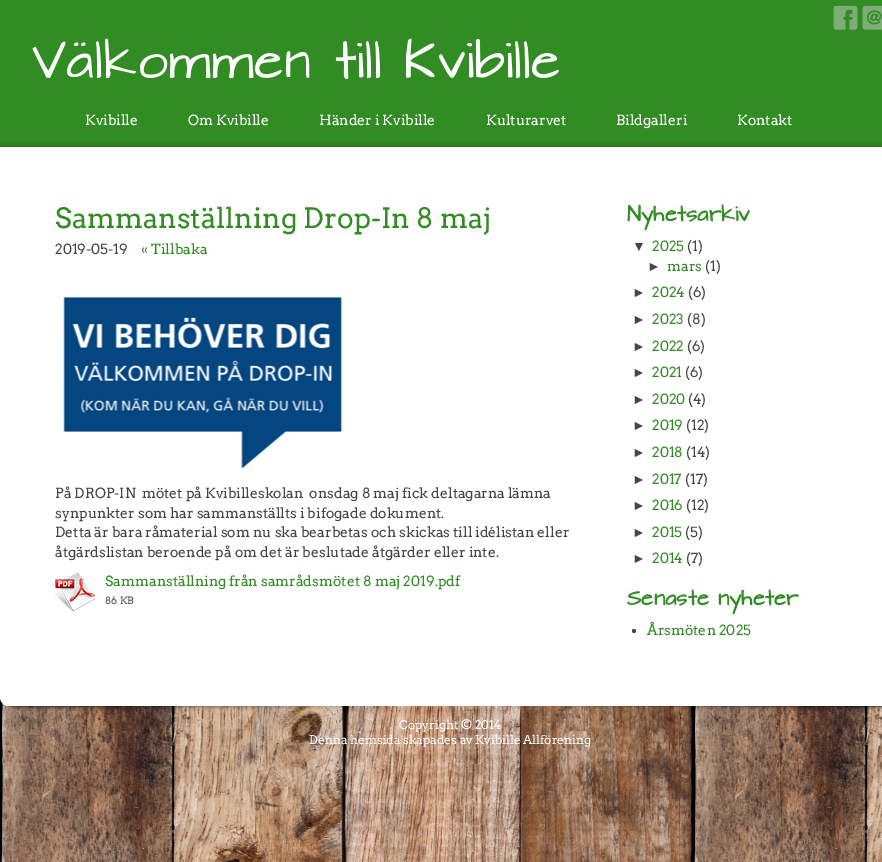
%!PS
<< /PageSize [882 862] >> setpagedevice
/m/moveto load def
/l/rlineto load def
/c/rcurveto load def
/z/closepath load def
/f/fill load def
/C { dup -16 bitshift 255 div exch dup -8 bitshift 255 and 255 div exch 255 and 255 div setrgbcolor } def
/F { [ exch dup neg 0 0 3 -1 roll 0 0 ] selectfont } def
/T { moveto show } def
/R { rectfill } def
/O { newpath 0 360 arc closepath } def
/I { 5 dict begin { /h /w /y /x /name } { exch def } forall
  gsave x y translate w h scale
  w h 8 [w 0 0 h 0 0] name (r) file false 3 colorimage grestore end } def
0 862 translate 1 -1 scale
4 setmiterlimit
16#FFFFFF C
0 0 882 862 R
(1.rgb) 0 697 882 165 I
16#328C24 C
0 0 882 147 R
(2.rgb) 833 5 25 25 I
(3.rgb) 862 5 20 25 I
(4.rgb) 32 38 527 41 I
(5.rgb) 0 141 882 6 I
/Arvo-Regular 14 F
16#FFFFFF C
(Kvibille) 85 125 T
(Om Kvibille) 188 125 T
(Händer i Kvibille) 319 125 T
(Kulturarvet) 486 125 T
(Bildgalleri) 616 125 T
(Kontakt) 737 125 T
0 147 m 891 0 l 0 550 l 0 5 -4 9 -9 9 c -873 0 l -5 0 -9 -4 -9 -9 c z f
/Arvo-Regular 28 F
16#328C24 C
(Sammanställning Drop-In 8 maj) 55 228 T
/Arvo-Regular 14 F
16#454545 C
(2019-05-19) 55 254 T
16#328C24 C
(« Tillbaka) 141 254 T
(6.rgb) 63 297 280 172 I
16#454545 C
(På DROP-IN  mötet på Kvibilleskolan  onsdag 8 maj fick deltagarna lämna) 55 498 T
(synpunkter som har sammanställts i bifogade dokument.) 55 518 T
(Detta är bara råmaterial som nu ska bearbetas och skickas till idélistan eller) 55 537 T
(åtgärdslistan beroende på om det är beslutade åtgärder eller inte.) 55 557 T
(7.rgb) 55 572 40 40 I
16#328C24 C
(Sammanställning från samrådsmötet 8 maj 2019.pdf) 105 586 T
/Arvo-Regular 10 F
16#454545 C
(86 KB) 105 604 T
/ArchitectsDaughter-Bold 18 F
16#328C24 C
(Nyhetsarkiv) 627 221 T
/LiberationSans-Regular 14 F
16#454545 C
(▼) 632 251 T
/Arvo-Regular 14 F
16#328C24 C
(2025) 652 251 T
16#454545 C
(\(1\)) 687 251 T
/LiberationSans-Regular 14 F
(►) 647 271 T
/Arvo-Regular 14 F
16#328C24 C
(mars) 667 271 T
16#454545 C
(\(1\)) 705 271 T
/LiberationSans-Regular 14 F
(►) 632 297 T
/Arvo-Regular 14 F
16#328C24 C
(2024) 652 297 T
16#454545 C
(\(6\)) 688 297 T
/LiberationSans-Regular 14 F
(►) 632 324 T
/Arvo-Regular 14 F
16#328C24 C
(2023) 652 324 T
16#454545 C
(\(8\)) 687 324 T
/LiberationSans-Regular 14 F
(►) 632 351 T
/Arvo-Regular 14 F
16#328C24 C
(2022) 652 351 T
16#454545 C
(\(6\)) 687 351 T
/LiberationSans-Regular 14 F
(►) 632 377 T
/Arvo-Regular 14 F
16#328C24 C
(2021) 652 377 T
16#454545 C
(\(6\)) 685 377 T
/LiberationSans-Regular 14 F
(►) 632 404 T
/Arvo-Regular 14 F
16#328C24 C
(2020) 652 404 T
16#454545 C
(\(4\)) 688 404 T
/LiberationSans-Regular 14 F
(►) 632 430 T
/Arvo-Regular 14 F
16#328C24 C
(2019) 652 430 T
16#454545 C
(\(12\)) 686 430 T
/LiberationSans-Regular 14 F
(►) 632 457 T
/Arvo-Regular 14 F
16#328C24 C
(2018) 652 457 T
16#454545 C
(\(14\)) 686 457 T
/LiberationSans-Regular 14 F
(►) 632 484 T
/Arvo-Regular 14 F
16#328C24 C
(2017) 652 484 T
16#454545 C
(\(17\)) 685 484 T
/LiberationSans-Regular 14 F
(►) 632 510 T
/Arvo-Regular 14 F
16#328C24 C
(2016) 652 510 T
16#454545 C
(\(12\)) 686 510 T
/LiberationSans-Regular 14 F
(►) 632 537 T
/Arvo-Regular 14 F
16#328C24 C
(2015) 652 537 T
16#454545 C
(\(5\)) 685 537 T
/LiberationSans-Regular 14 F
(►) 632 563 T
/Arvo-Regular 14 F
16#328C24 C
(2014) 652 563 T
16#454545 C
(\(7\)) 686 563 T
/ArchitectsDaughter-Bold 18 F
16#328C24 C
(Senaste nyheter) 627 605 T
16#454545 C
634 631 2 O f
/Arvo-Regular 14 F
16#328C24 C
(Årsmöten 2025) 647 635 T
(8.rgb) 4 706 878 5 I
/Arvo-Regular 12 F
16#FFFFFF C
(Copyright © 2014) 399 729 T
(Denna hemsida skapades av Kvibille Allförening) 309 744 T
showpage
